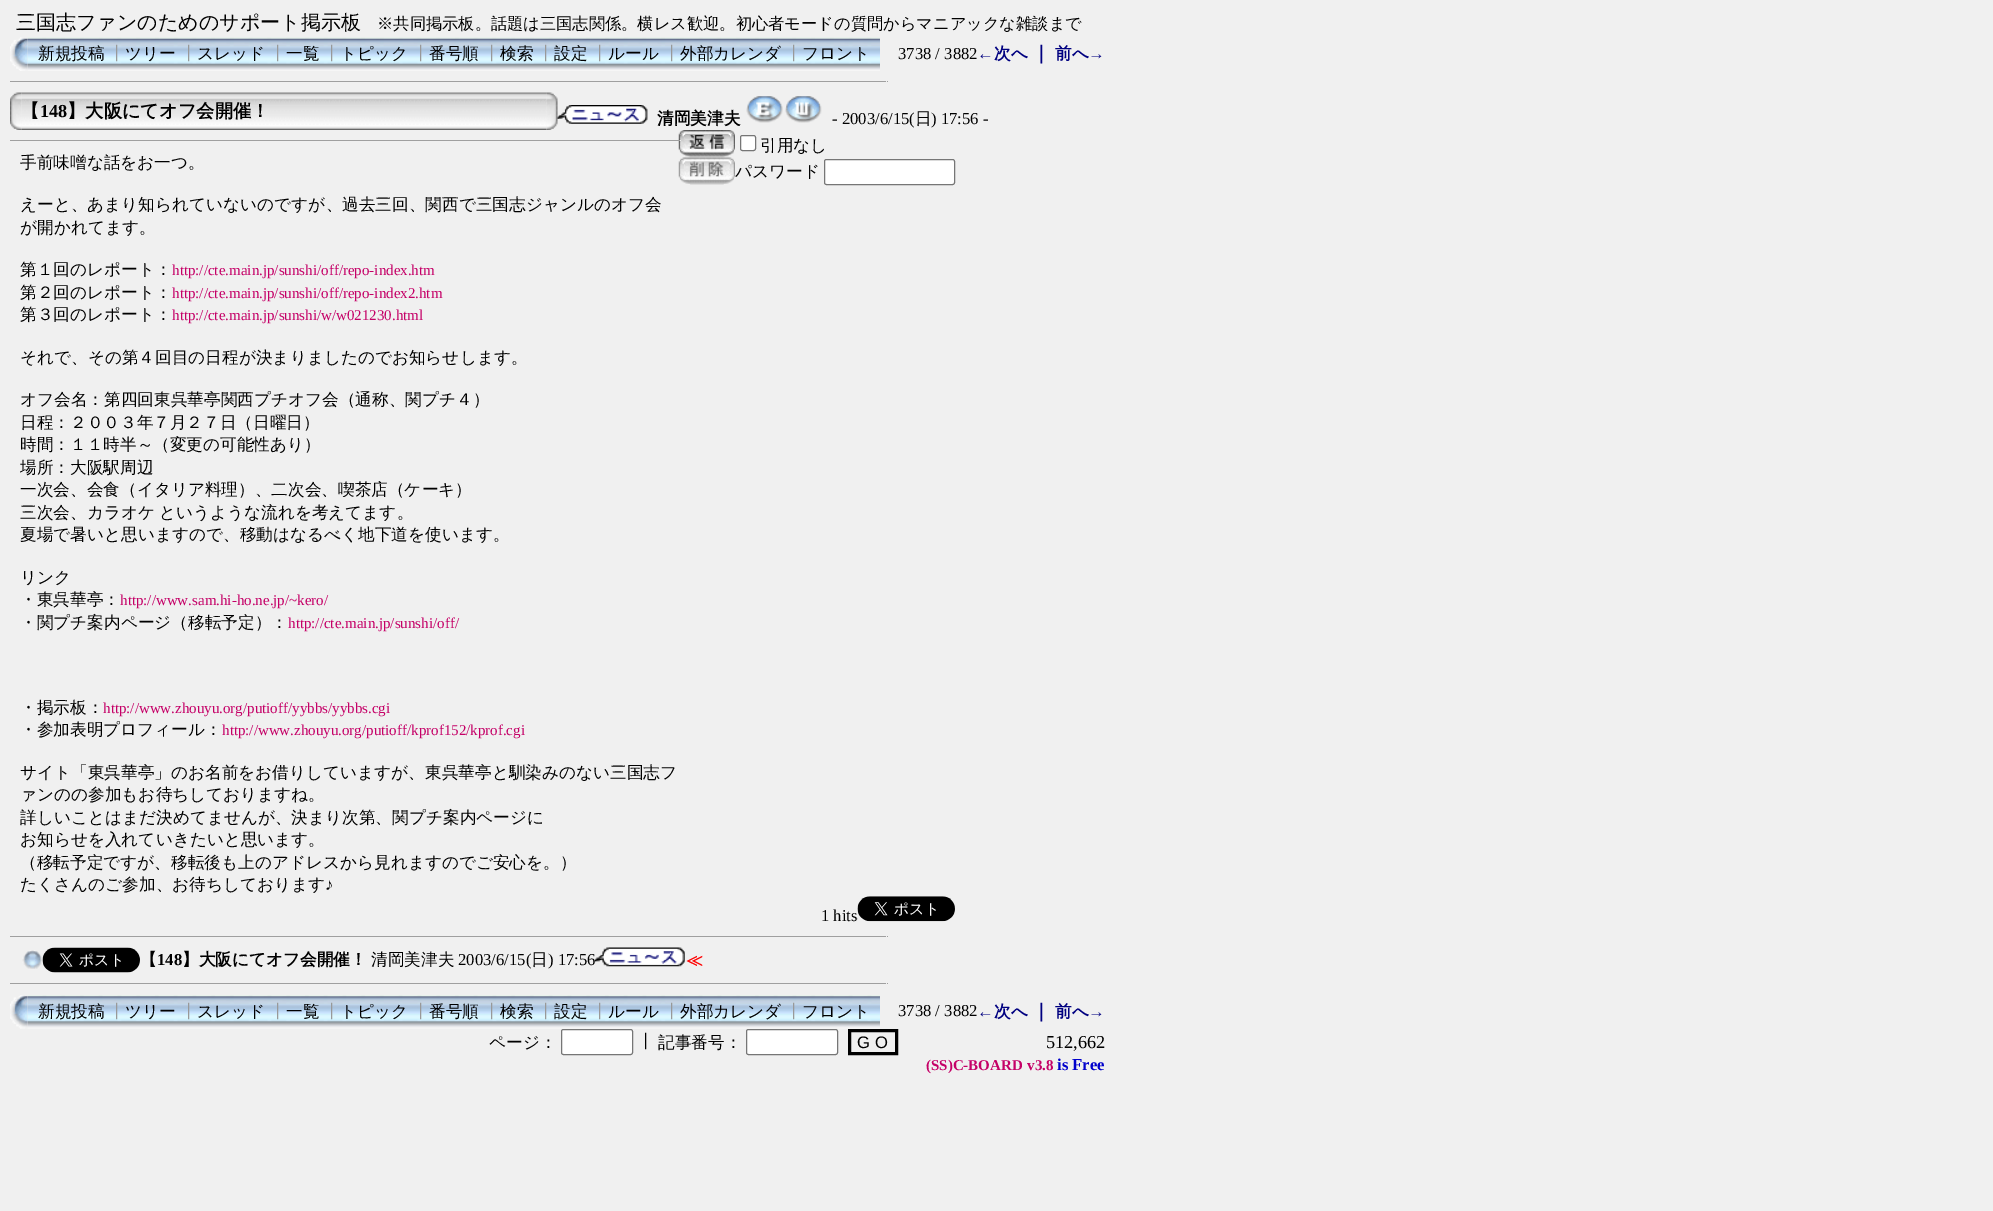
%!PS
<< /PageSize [1993 1211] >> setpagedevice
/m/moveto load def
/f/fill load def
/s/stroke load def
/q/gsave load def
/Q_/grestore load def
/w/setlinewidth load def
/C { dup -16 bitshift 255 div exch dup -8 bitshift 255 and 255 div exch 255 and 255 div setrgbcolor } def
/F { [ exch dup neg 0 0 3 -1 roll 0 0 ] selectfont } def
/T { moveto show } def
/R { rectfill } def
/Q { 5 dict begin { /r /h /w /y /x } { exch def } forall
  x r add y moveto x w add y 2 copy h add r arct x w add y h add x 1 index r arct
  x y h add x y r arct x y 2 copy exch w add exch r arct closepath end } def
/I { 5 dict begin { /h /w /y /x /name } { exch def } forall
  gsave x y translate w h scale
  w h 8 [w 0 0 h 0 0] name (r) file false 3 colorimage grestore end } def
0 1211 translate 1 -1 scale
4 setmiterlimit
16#F0F0F0 C
0 0 1993 1211 R
/WenQuanYiZenHei-Medium 20 F
16#000000 C
(三国志ファンのためのサポート掲示板) 16 29 T
/WenQuanYiZenHei-Medium 16.25 F
(※共同掲示板。話題は三国志関係。横レス歓迎。初心者モードの質問からマニアックな雑談まで) 377 29 T
(2.rgb) 27 37 853 34 I
(1.rgb) 10 37 18 34 I
/WenQuanYiZenHei-Medium 16.65 F
(新規投稿) 38 59 T
16#999999 C
(┃) 108 59 T
16#000000 C
(ツリー) 125 59 T
16#999999 C
(┃) 180 59 T
16#000000 C
(スレッド) 197 59 T
16#999999 C
(┃) 269 59 T
16#000000 C
(一覧) 286 59 T
16#999999 C
(┃) 323 59 T
16#000000 C
(トピック) 340 59 T
16#999999 C
(┃) 412 59 T
16#000000 C
(番号順) 429 59 T
16#999999 C
(┃) 483 59 T
16#000000 C
(検索) 500 59 T
16#999999 C
(┃) 537 59 T
16#000000 C
(設定) 554 59 T
16#999999 C
(┃) 591 59 T
16#000000 C
(ルール) 608 59 T
16#999999 C
(┃) 663 59 T
16#000000 C
(外部カレンダ) 680 59 T
16#999999 C
(┃) 785 59 T
16#000000 C
(フロント) 802 59 T
/LiberationSerif-Regular 16.65 F
(3738 / 3882) 898 59 T
/LiberationSerif-Bold 16.65 F
16#000080 C
(←) 977 59 T
/WenQuanYiZenHei-Bold 16.65 F
(次へ) 994 59 T
/WenQuanYiZenHei-Bold 18.25 F
(｜) 1032 59 T
/WenQuanYiZenHei-Bold 16.65 F
(前へ) 1055 59 T
/LiberationSerif-Bold 16.65 F
(→) 1088 59 T
16#9F9F9F C
10 81 878 1 R
16#EEEEEE C
886 81 1 1 R
(4.rgb) 21 92 526 38 I
(3.rgb) 10 92 12 38 I
/WenQuanYiZenHei-Bold 18.25 F
16#000000 C
(【) 21 117 T
/LiberationSerif-Bold 18.25 F
(148) 40 117 T
/WenQuanYiZenHei-Bold 18.25 F
(】大阪にてオフ会開催！) 67 117 T
(5.rgb) 546 92 12 38 I
(6.rgb) 557 105 91 19 I
/WenQuanYiZenHei-Bold 16.65 F
(清岡美津夫) 657 124 T
(7.rgb) 746 96 37 27 I
(8.rgb) 785 96 37 27 I
/LiberationSerif-Regular 16.65 F
(- 2003/6/15\() 832 124 T
/WenQuanYiZenHei-Medium 16.65 F
(日) 915 124 T
/LiberationSerif-Regular 16.65 F
(\) 17:56 -) 931 124 T
/WenQuanYiZenHei-Medium 16.65 F
(手前味噌な話をお一つ。) 20 168 T
(えーと、あまり知られていないのですが、過去三回、関西で三国志ジャンルのオフ会) 20 210 T
(が開かれてます。) 20 233 T
(第１回のレポート：) 20 275 T
/LiberationSerif-Regular 15 F
16#C50067 C
(http://cte.main.jp/sunshi/off/repo-index.htm) 172 275 T
/WenQuanYiZenHei-Medium 16.65 F
16#000000 C
(第２回のレポート：) 20 298 T
/LiberationSerif-Regular 15 F
16#C50067 C
(http://cte.main.jp/sunshi/off/repo-index2.htm) 172 298 T
/WenQuanYiZenHei-Medium 16.65 F
16#000000 C
(第３回のレポート：) 20 320 T
/LiberationSerif-Regular 15 F
16#C50067 C
(http://cte.main.jp/sunshi/w/w021230.html) 172 320 T
/WenQuanYiZenHei-Medium 16.65 F
16#000000 C
(それで、その第４回目の日程が決まりましたのでお知らせします。) 20 363 T
(オフ会名：第四回東呉華亭関西プチオフ会（通称、関プチ４）) 20 405 T
(日程：２００３年７月２７日（日曜日）) 20 428 T
(時間：１１時半～（変更の可能性あり）) 20 450 T
(場所：大阪駅周辺) 20 473 T
(一次会、会食（イタリア料理）、二次会、喫茶店（ケーキ）) 20 495 T
20 518 m -1 0 32 (三次会、カラオケ というような流れを考えてます。) widthshow
(夏場で暑いと思いますので、移動はなるべく地下道を使います。) 20 540 T
(リンク) 20 583 T
(・東呉華亭：) 20 605 T
/LiberationSerif-Regular 15 F
16#C50067 C
(http://www.sam.hi-ho.ne.jp/~kero/) 120 605 T
/WenQuanYiZenHei-Medium 16.65 F
16#000000 C
(・関プチ案内ページ（移転予定）：) 20 628 T
/LiberationSerif-Regular 15 F
16#C50067 C
(http://cte.main.jp/sunshi/off/) 288 628 T
/WenQuanYiZenHei-Medium 16.65 F
16#000000 C
(・掲示板：) 20 713 T
/LiberationSerif-Regular 15 F
16#C50067 C
(http://www.zhouyu.org/putioff/yybbs/yybbs.cgi) 103 713 T
/WenQuanYiZenHei-Medium 16.65 F
16#000000 C
(・参加表明プロフィール：) 20 735 T
/LiberationSerif-Regular 15 F
16#C50067 C
(http://www.zhouyu.org/putioff/kprof152/kprof.cgi) 222 735 T
/WenQuanYiZenHei-Medium 16.65 F
16#000000 C
(サイト「東呉華亭」のお名前をお借りしていますが、東呉華亭と馴染みのない三国志フ) 20 778 T
(ァンのの参加もお待ちしておりますね。) 20 800 T
(詳しいことはまだ決めてませんが、決まり次第、関プチ案内ページに) 20 823 T
(お知らせを入れていきたいと思います。) 20 845 T
(（移転予定ですが、移転後も上のアドレスから見れますのでご安心を。）) 20 868 T
(たくさんのご参加、お待ちしております) 20 890 T
/LiberationSerif-Regular 16.65 F
(♪) 325 890 T
(9.rgb) 678 130 57 28 I
16#9F9F9F C
10 140 671 1 R
16#EEEEEE C
680 140 1 1 R
16#FFFFFF C
740.5 135.5 15 15 2 Q q f Q_
16#767676 C
s
/WenQuanYiZenHei-Medium 16.65 F
16#000000 C
(引用なし) 760 151 T
(10.rgb) 678 157 57 28 I
(パスワード) 735 177 T
16#FFFFFF C
824.5 159.5 130 25 2 Q q f Q_
16#767676 C
s
/LiberationSerif-Regular 16.65 F
16#000000 C
(1 hits) 821 921 T
(11.rgb) 857 896 98 26 I
16#9F9F9F C
10 936 878 1 R
16#EEEEEE C
886 936 1 1 R
(12.rgb) 22 950 21 19 I
(13.rgb) 42 947 98 26 I
/WenQuanYiZenHei-Bold 16.65 F
16#000000 C
(【) 140 965 T
/LiberationSerif-Bold 16.65 F
(148) 157 965 T
/WenQuanYiZenHei-Bold 16.65 F
(】大阪にてオフ会開催！) 182 965 T
/WenQuanYiZenHei-Medium 16.65 F
(清岡美津夫) 371 965 T
/LiberationSerif-Regular 16.65 F
(2003/6/15\() 458 965 T
/WenQuanYiZenHei-Medium 16.65 F
(日) 531 965 T
/LiberationSerif-Regular 16.65 F
(\) 17:56) 548 965 T
(14.rgb) 595 947 90 20 I
/WenQuanYiZenHei-Bold 16.65 F
16#FF0000 C
(≪) 686 966 T
16#9F9F9F C
10 983 878 1 R
16#EEEEEE C
886 983 1 1 R
(16.rgb) 27 995 853 34 I
(15.rgb) 10 995 18 34 I
/WenQuanYiZenHei-Medium 16.65 F
16#000000 C
(新規投稿) 38 1017 T
16#999999 C
(┃) 108 1017 T
16#000000 C
(ツリー) 125 1017 T
16#999999 C
(┃) 180 1017 T
16#000000 C
(スレッド) 197 1017 T
16#999999 C
(┃) 269 1017 T
16#000000 C
(一覧) 286 1017 T
16#999999 C
(┃) 323 1017 T
16#000000 C
(トピック) 340 1017 T
16#999999 C
(┃) 412 1017 T
16#000000 C
(番号順) 429 1017 T
16#999999 C
(┃) 483 1017 T
16#000000 C
(検索) 500 1017 T
16#999999 C
(┃) 537 1017 T
16#000000 C
(設定) 554 1017 T
16#999999 C
(┃) 591 1017 T
16#000000 C
(ルール) 608 1017 T
16#999999 C
(┃) 663 1017 T
16#000000 C
(外部カレンダ) 680 1017 T
16#999999 C
(┃) 785 1017 T
16#000000 C
(フロント) 802 1017 T
/LiberationSerif-Regular 16.65 F
(3738 / 3882) 898 1016 T
/LiberationSerif-Bold 16.65 F
16#000080 C
(←) 977 1017 T
/WenQuanYiZenHei-Bold 16.65 F
(次へ) 994 1017 T
/WenQuanYiZenHei-Bold 18.25 F
(｜) 1032 1017 T
/WenQuanYiZenHei-Bold 16.65 F
(前へ) 1055 1017 T
/LiberationSerif-Bold 16.65 F
(→) 1088 1017 T
/WenQuanYiZenHei-Medium 16.65 F
16#000000 C
(ページ：) 489 1048 T
16#FFFFFF C
561.5 1029.5 71 25 2 Q q f Q_
16#767676 C
s
16#000000 C
(┃) 637 1047 T
(記事番号：) 658 1048 T
16#FFFFFF C
746.5 1029.5 91 25 2 Q q f Q_
16#767676 C
s
16#000000 C
3 w
849.5 1030.5 47 23 rectstroke
/LiberationSans-Regular 16.65 F
(G O) 857 1048 T
/LiberationSerif-Regular 18.25 F
(512,662) 1046 1048 T
/LiberationSerif-Bold 15 F
16#C50067 C
(\(SS\)C-BOARD) 926 1070 T
(v3.8) 1027 1070 T
/LiberationSerif-Bold 16.65 F
16#0000CC C
(is Free) 1057 1070 T
showpage
